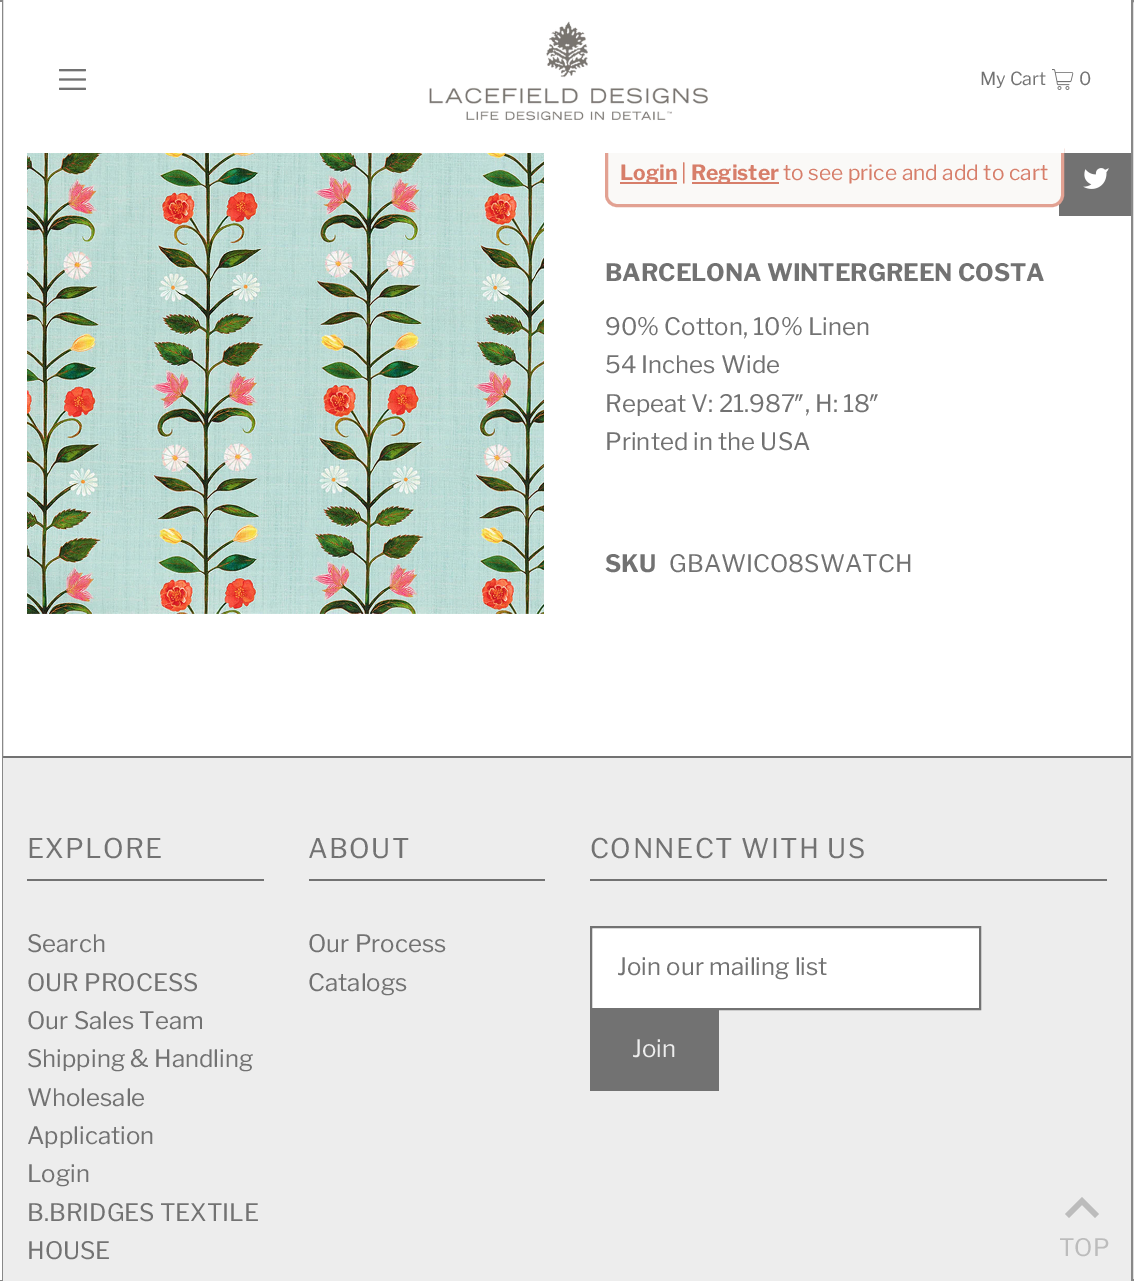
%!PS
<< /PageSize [1134 1281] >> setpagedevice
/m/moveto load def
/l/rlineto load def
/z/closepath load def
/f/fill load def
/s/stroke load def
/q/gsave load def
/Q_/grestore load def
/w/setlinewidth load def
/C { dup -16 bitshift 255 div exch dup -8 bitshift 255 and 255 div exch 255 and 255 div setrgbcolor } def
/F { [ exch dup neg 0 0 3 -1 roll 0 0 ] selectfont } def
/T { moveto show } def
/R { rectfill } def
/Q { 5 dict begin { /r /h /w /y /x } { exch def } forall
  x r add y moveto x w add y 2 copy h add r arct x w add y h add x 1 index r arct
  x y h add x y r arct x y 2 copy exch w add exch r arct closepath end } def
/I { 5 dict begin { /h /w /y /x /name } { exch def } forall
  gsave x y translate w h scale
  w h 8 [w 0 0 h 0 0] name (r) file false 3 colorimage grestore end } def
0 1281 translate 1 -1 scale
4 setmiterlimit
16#FFFFFF C
0 0 1134 1281 R
16#727272 C
0 756 1134 2 R
16#888888 C
2 w
-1 1 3 1279 rectstroke
16#FFFFFF C
0 2 2 1278 R
16#727272 C
1059 153 72 63 R
16#FAF9F7 C
606.5 139.5 456 66 10.5 Q q f Q_
16#E2A192 C
3 w
s
16#FFFFFF C
605 138 459 15 R
(1.rgb) 59 69 27 21 I
(2.rgb) 429 21 279 100 I
/LibreFranklin-Regular 18 F
16#727272 C
(My Cart) 980 85 T
(3.rgb) 1052 69 22 21 I
(0) 1079 85 T
(4.rgb) 27 153 517 461 I
16#D77E6A C
620 182 57 2 R
/LibreFranklin-Bold 21 F
(Login) 620 180 T
/LibreFranklin-Regular 21 F
(|) 681 180 T
692 182 87 2 R
/LibreFranklin-Bold 21 F
(Register) 691 180 T
/LibreFranklin-Regular 21 F
(to see price and add to cart) 783 180 T
/LibreFranklin-Bold 24 F
16#727272 C
(BARCELONA WINTERGREEN COSTA) 605 281 T
/LibreFranklin-Regular 24 F
(90% Cotton, 10% Linen) 605 335 T
(54 Inches Wide) 605 373 T
(Repeat V: 21.987″, H: 18″) 605 412 T
(Printed in the USA) 605 450 T
/LibreFranklin-Bold 24 F
(SKU) 605 572 T
/LibreFranklin-Regular 24 F
(GBAWICO8SWATCH) 669 572 T
(5.rgb) 1083 168 26 21 I
16#EDEDED C
3 758 1128 523 R
16#727272 C
27 879 237 2 R
/LibreFranklin-Regular 27 F
27 858 m 1.4 0 (EXPLORE) ashow
/LibreFranklin-Regular 24 F
(Search) 27 952 T
(OUR PROCESS) 27 991 T
(Our Sales Team) 27 1029 T
(Shipping & Handling) 27 1067 T
(Wholesale) 27 1106 T
(Application) 27 1144 T
(Login) 27 1182 T
(B.BRIDGES TEXTILE) 27 1221 T
(HOUSE) 27 1259 T
309 879 236 2 R
/LibreFranklin-Regular 27 F
308 858 m 1.4 0 (ABOUT) ashow
/LibreFranklin-Regular 24 F
(Our Process) 308 952 T
(Catalogs) 308 991 T
590 879 517 2 R
/LibreFranklin-Regular 27 F
590 858 m 1.4 0 (CONNECT WITH US) ashow
16#FFFFFF C
591 927 m 389 0 l 0 82 l -389 0 l z q f Q_
16#727272 C
2 w
s
/LibreFranklin-Regular 24 F
(Join our mailing list) 617 975 T
590 1010 129 81 R
16#EDEDED C
(Join) 632 1057 T
16#FFFFFF C
1133 756 1 2 R
16#888888 C
1132 1 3 1279 rectstroke
16#BCBCBC C
1082 1197 m -17 17 l 4 4 l 13 -13 l 13 13 l 4 -4 l z f
(TOP) 1059 1256 T
showpage
